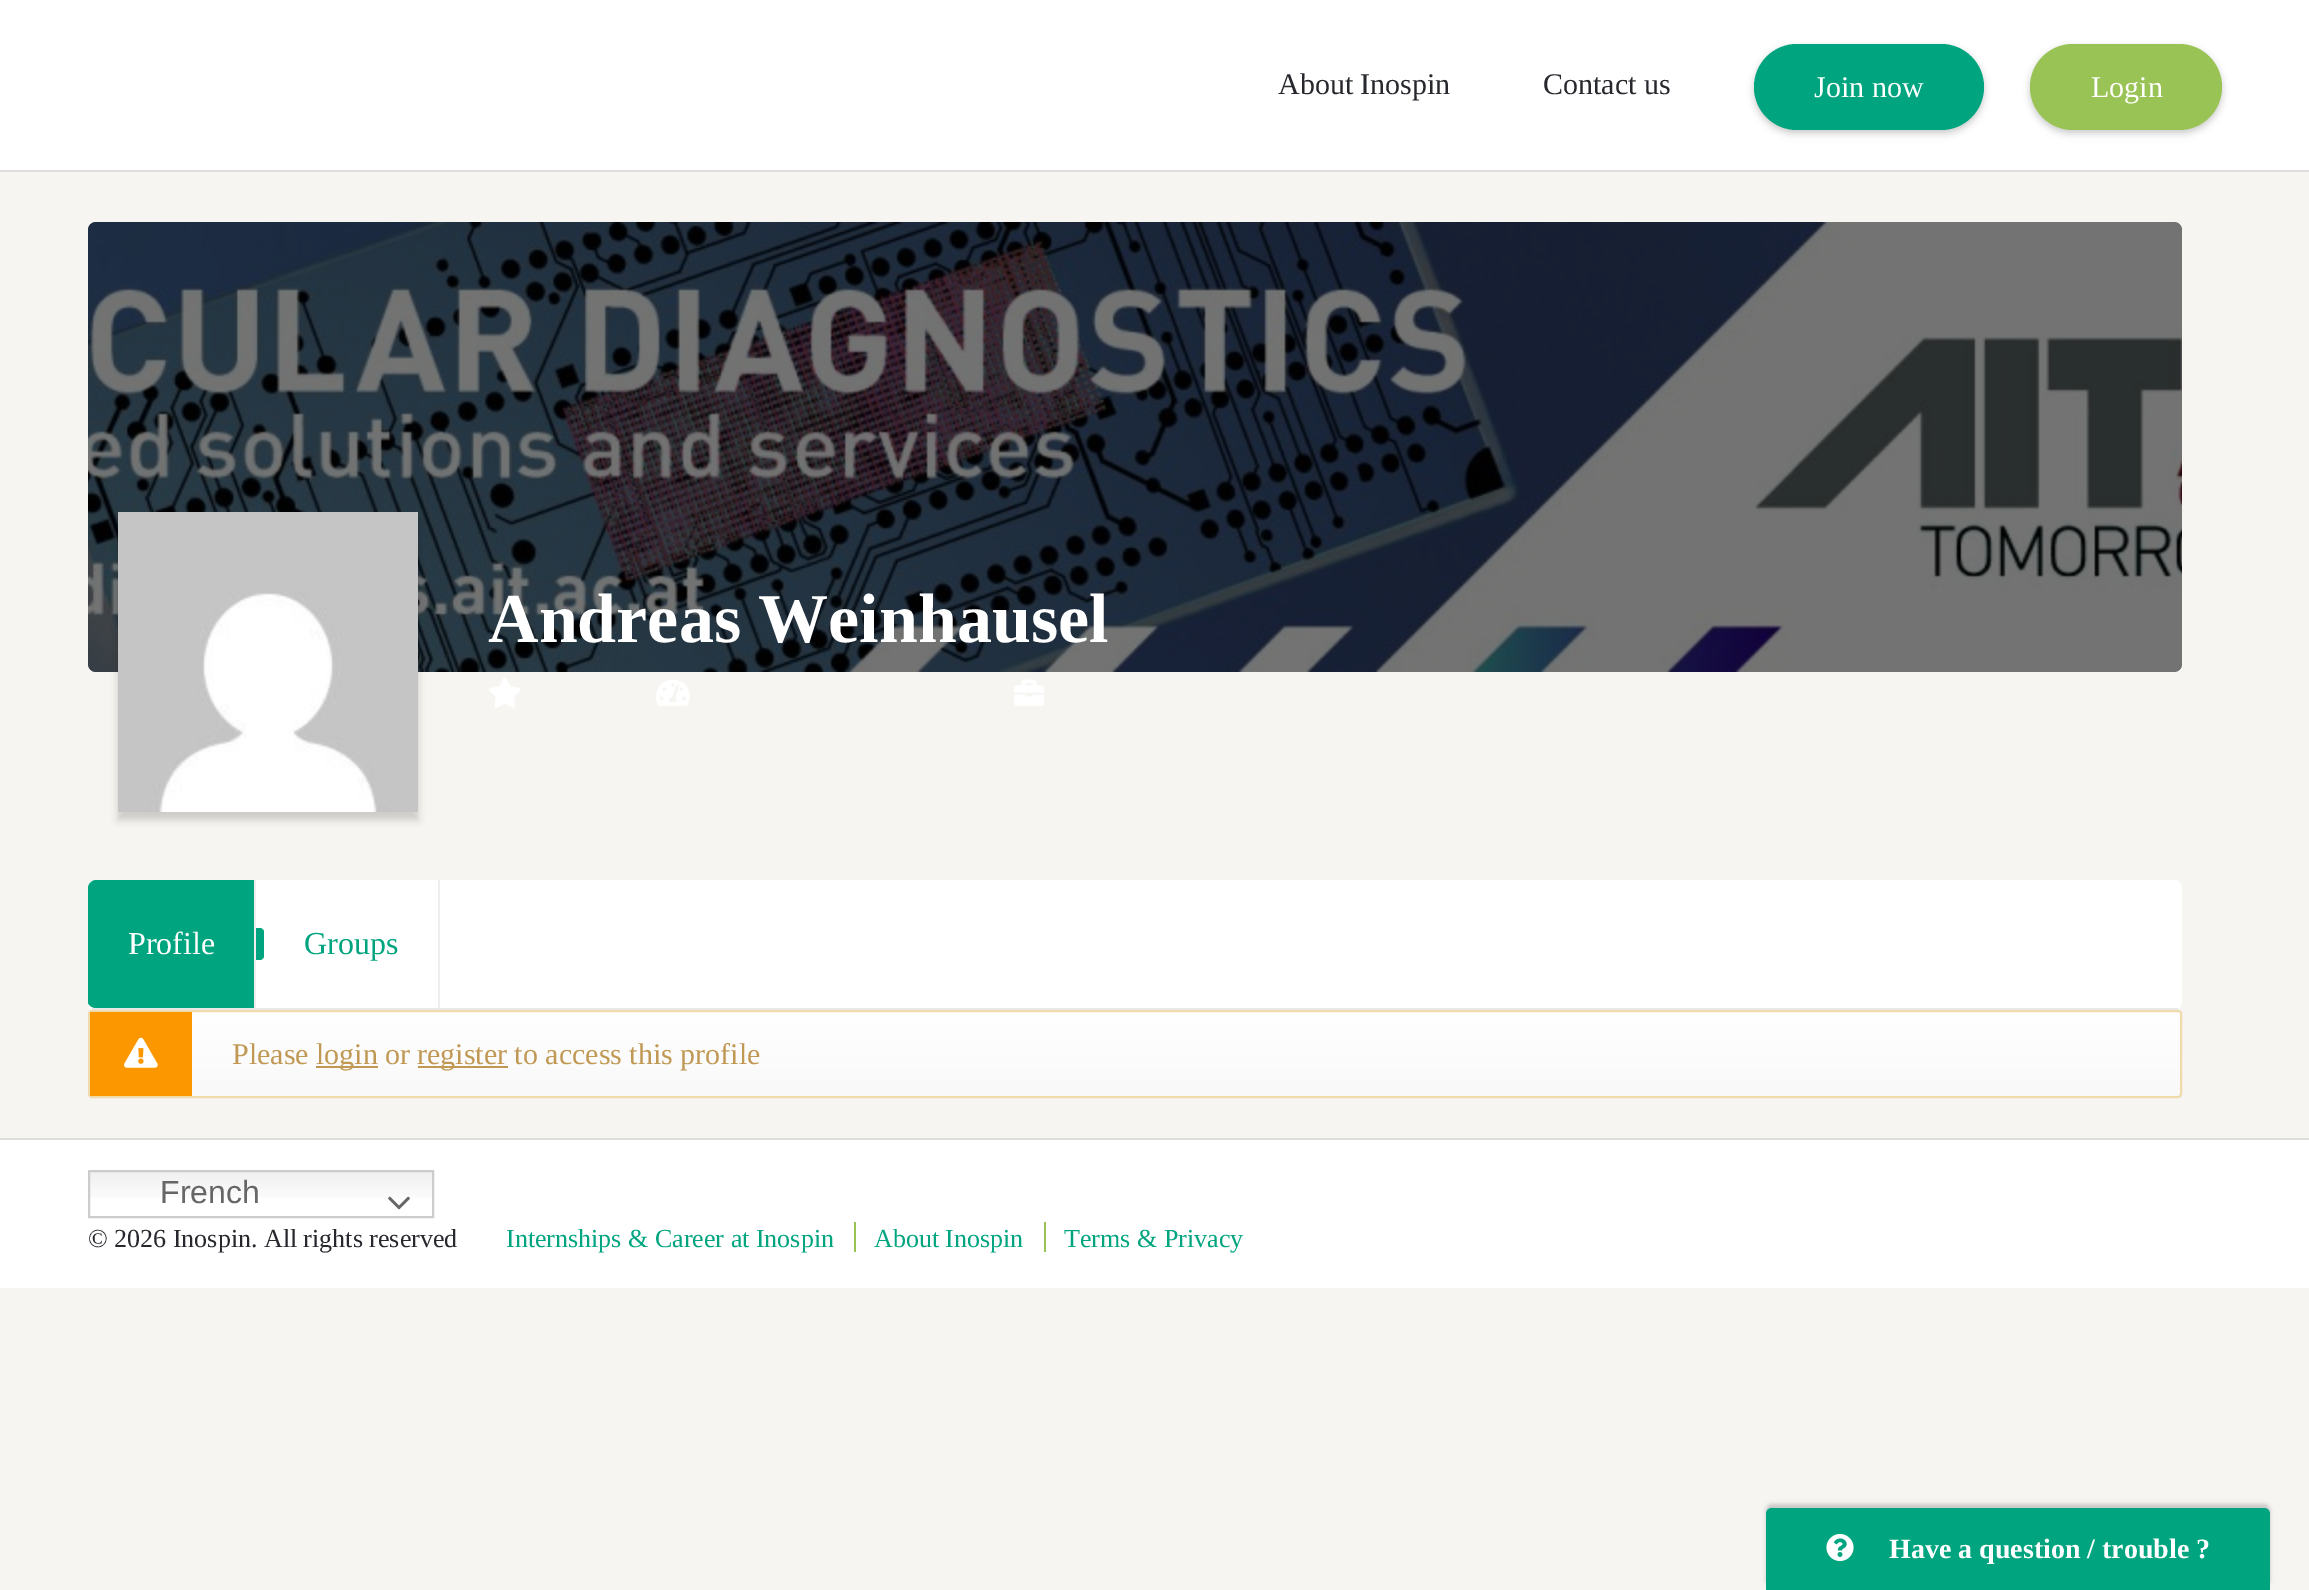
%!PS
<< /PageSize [2309 1590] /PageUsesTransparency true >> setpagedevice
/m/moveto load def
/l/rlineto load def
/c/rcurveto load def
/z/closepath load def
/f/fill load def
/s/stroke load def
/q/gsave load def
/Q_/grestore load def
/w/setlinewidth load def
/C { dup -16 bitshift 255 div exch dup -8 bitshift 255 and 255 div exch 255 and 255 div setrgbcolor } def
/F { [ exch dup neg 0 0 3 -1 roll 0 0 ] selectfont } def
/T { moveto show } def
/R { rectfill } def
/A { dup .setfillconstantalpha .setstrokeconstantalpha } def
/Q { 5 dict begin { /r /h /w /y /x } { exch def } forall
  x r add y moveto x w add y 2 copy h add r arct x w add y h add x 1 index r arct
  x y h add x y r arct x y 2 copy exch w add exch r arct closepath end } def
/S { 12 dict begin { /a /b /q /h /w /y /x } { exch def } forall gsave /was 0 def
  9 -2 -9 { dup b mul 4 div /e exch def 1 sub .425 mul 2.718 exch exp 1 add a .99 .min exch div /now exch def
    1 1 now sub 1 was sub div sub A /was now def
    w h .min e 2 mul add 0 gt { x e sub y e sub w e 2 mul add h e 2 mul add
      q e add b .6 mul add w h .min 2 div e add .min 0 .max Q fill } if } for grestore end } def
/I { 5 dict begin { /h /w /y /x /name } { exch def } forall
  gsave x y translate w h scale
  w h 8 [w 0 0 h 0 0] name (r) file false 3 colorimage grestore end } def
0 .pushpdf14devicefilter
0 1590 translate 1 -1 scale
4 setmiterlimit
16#F6F5F2 C
0 0 2309 1590 R
16#FFFFFF C
0 0 2309 170 R
16#DDDDDD C
0 170 2309 2 R
/LiberationSerif-Regular 30 F
16#26282D C
(About Inospin) 1278 94 T
(Contact us) 1543 94 T
16#000000 C
1754 48 230 86 43 4 .12 S
1754 46 230 86 43 3 .08 S
16#00A57F C
1754 44 230 86 43 Q f
16#FFFFFF C
(Join now) 1814 97 T
16#000000 C
2030 48 192 86 43 4 .12 S
2030 46 192 86 43 3 .08 S
16#9AC355 C
2030 44 192 86 43 Q f
16#FFFFFF C
(Login) 2091 97 T
16#C5C5C5 C
88 222 2094 450 8 Q f
(1.rgb) 88 222 2094 450 I
0.55 A
16#000000 C
88 222 2094 450 8 Q f
1 A
118 520 300 300 0 4 .17 S
(2.rgb) 118 512 300 300 I
/LiberationSerif-Bold 70 F
16#FFFFFF C
(Andreas Weinhausel) 488 642 T
(3.rgb) 489 678 32 30 I
(4.rgb) 656 679 34 27 I
(5.rgb) 1014 679 30 27 I
88 880 2094 130 8 Q f
16#E8E8E8 C
92 1008 2086 2 R
16#00A57F C
256 928 m 4 0 l 2 0 4 2 4 4 c 0 24 l 0 2 -2 4 -4 4 c -4 0 l z f
96 880 m -4 0 -8 4 -8 8 c 0 114 l 0 3 4 6 8 6 c 160 0 l 0 -128 l z f
16#EEEEEE C
254 880 2 128 R
/LiberationSerif-Regular 32 F
16#FFFFFF C
(Profile) 128 954 T
16#EEEEEE C
438 880 2 128 R
16#00A57F C
(Groups) 304 954 T
q 90 1012 2090 84 2 Q clip newpath
<< /ShadingType 2 /ColorSpace /DeviceRGB /Coords [1135 1012 1135 1096] /Extend [true true] /Function << /FunctionType 2 /Domain [0 1] /C0 [1 1 1] /C1 [.976 .976 .976] /N 1 >> >> shfill Q_
16#F1DAAB C
2 w
89 1011 2092 86 3 Q s
16#FC9700 C
90 1012 102 84 R
(6.rgb) 124 1037 34 31 I
/LiberationSerif-Regular 30 F
16#C09853 C
(Please) 232 1064 T
316 1066 62 2 R
(login or) 316 1064 T
418 1066 90 2 R
(register to access this profile) 417 1064 T
16#FFFFFF C
0 1140 2309 148 R
16#DDDDDD C
0 1138 2309 2 R
q 90 1172 m 342 0 l 0 26 l -342 0 l z clip newpath
<< /ShadingType 2 /ColorSpace /DeviceRGB /Coords [261 1170 261 1218] /Extend [true true] /Function << /FunctionType 3 /Domain [0 1] /Functions [<< /FunctionType 2 /Domain [0 1] /C0 [.937 .937 .937] /C1 [1 1 1] /N 1 >> << /FunctionType 2 /Domain [0 1] /C0 [1 1 1] /C1 [1 1 1] /N 1 >>] /Bounds [.7] /Encode [0 1 0 1] >> >> shfill Q_
16#CCCCCC C
89 1171 344 46 rectstroke
/LiberationSans-Regular 32 F
16#666666 C
(French) 160 1203 T
(7.rgb) 388 1196 22 14 I
/LiberationSerif-Regular 26 F
16#26282D C
(© 2026 Inospin. All rights reserved) 88 1247 T
16#00A57F C
(Internships & Career at Inospin) 506 1247 T
(About Inospin) 874 1247 T
16#9AC355 C
854 1222 2 30 R
16#00A57F C
(Terms & Privacy) 1064 1247 T
16#9AC355 C
1044 1222 2 30 R
16#000000 C
1766 1504 504 82 6 2 .18 S
16#00A57F C
1772 1508 m 492 0 l 3.5 0 6 2.5 6 6 c 0 76 l -504 0 l 0 -76 l 0 -3.5 2.5 -6 6 -6 c z f
(8.rgb) 1826 1533 28 29 I
/LiberationSerif-Bold 28 F
16#FFFFFF C
(Have a question / trouble ?) 1889 1558 T
.poppdf14devicefilter showpage
